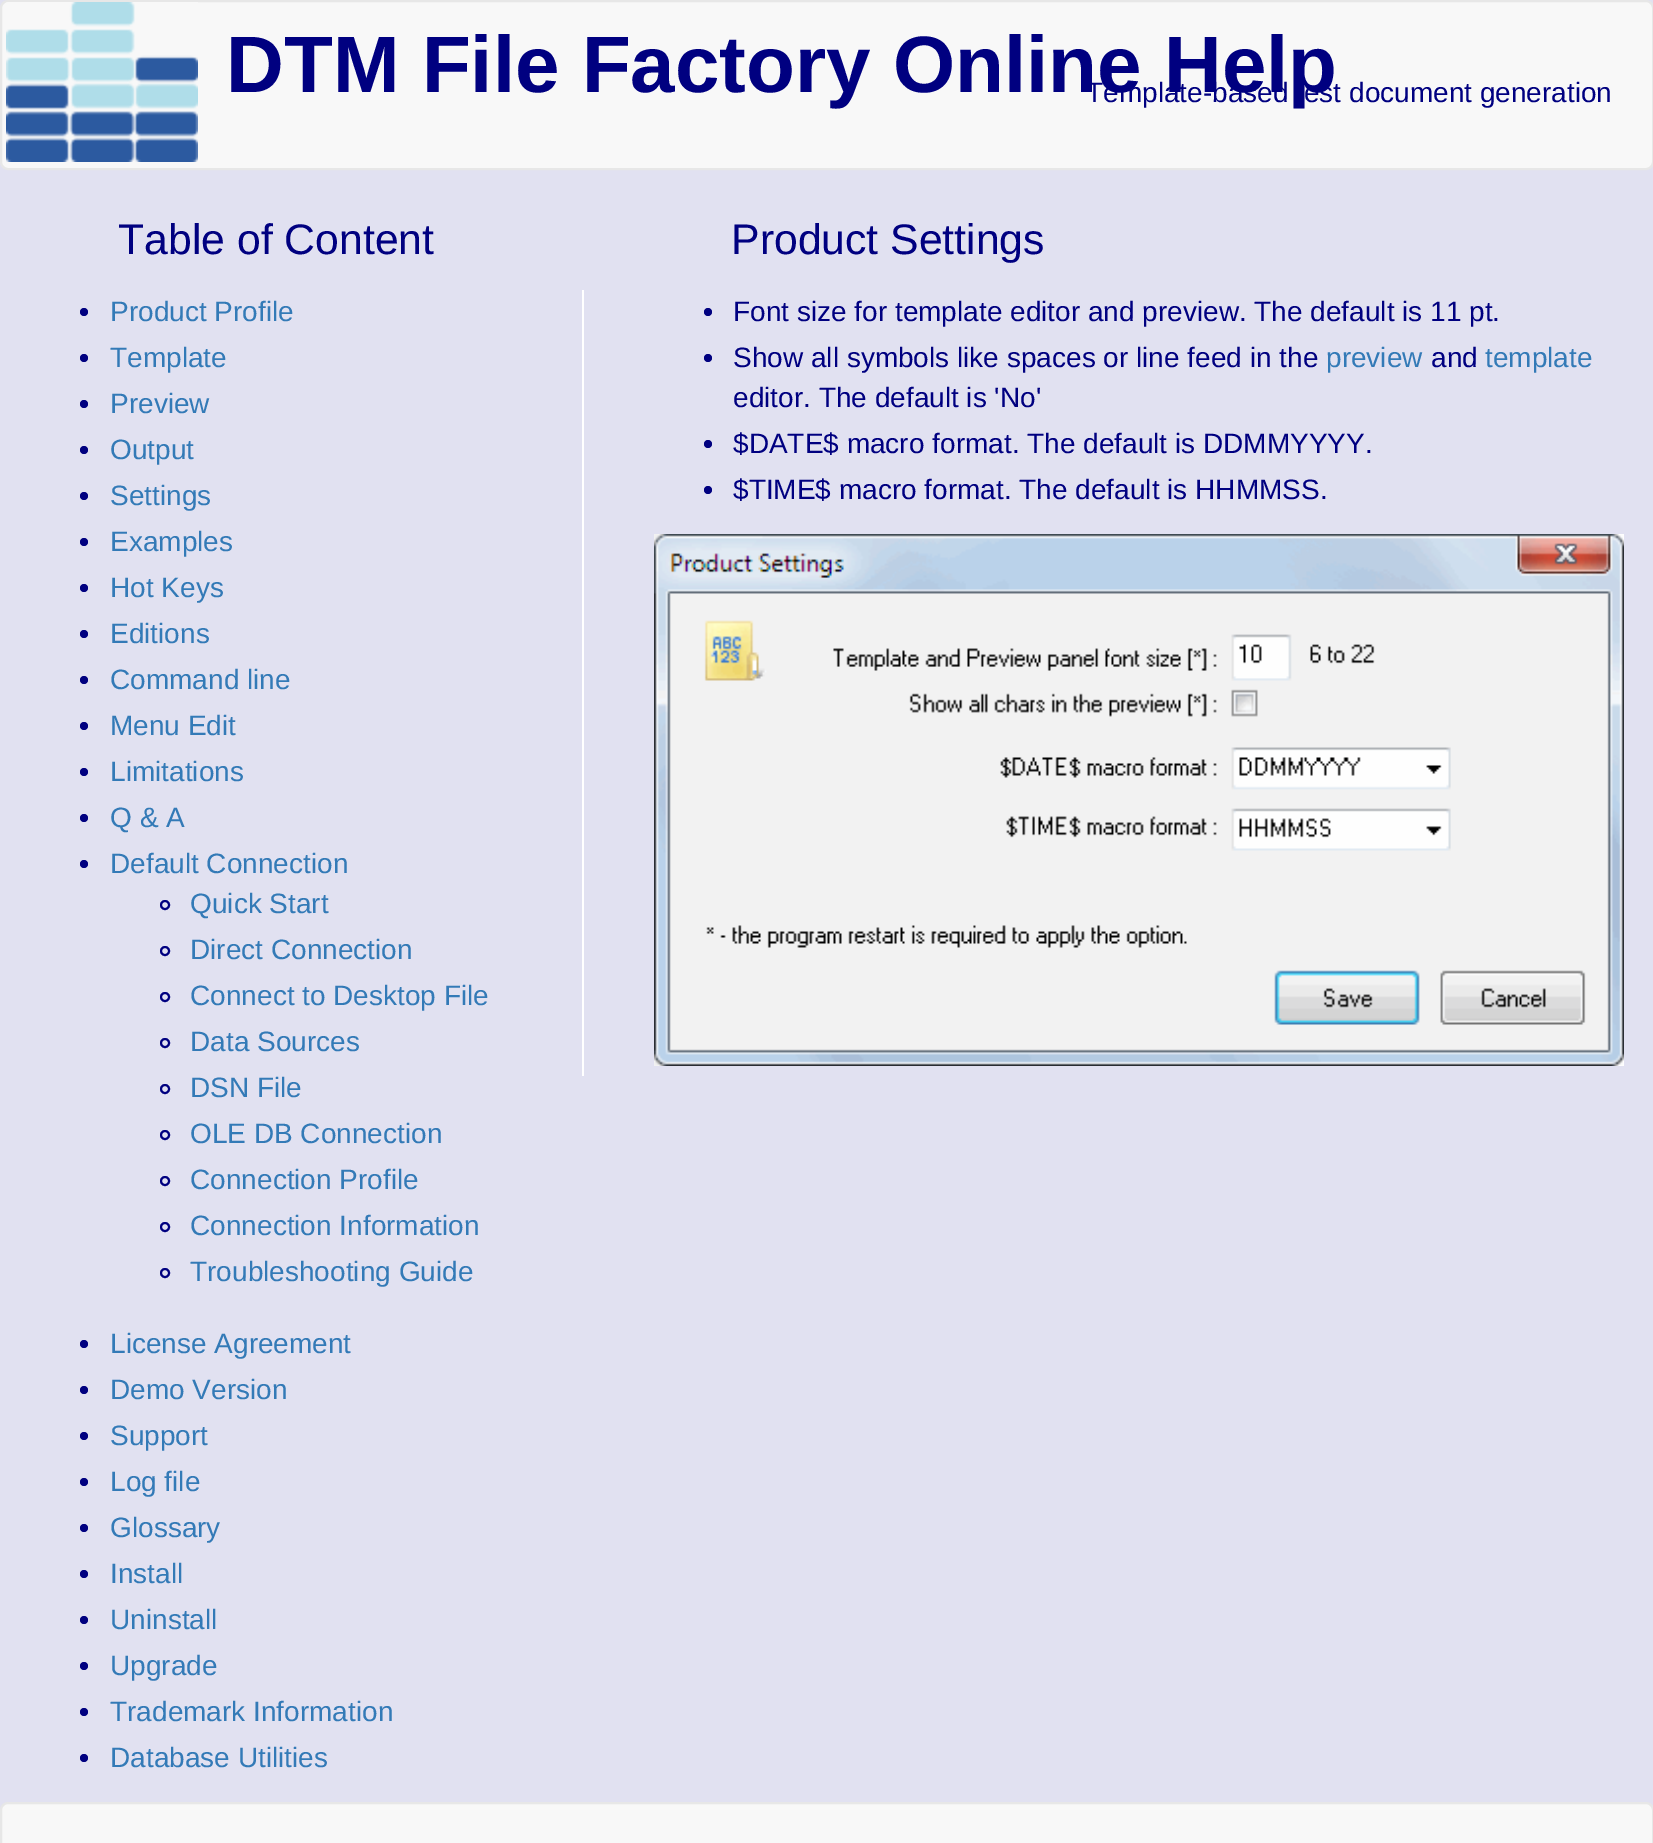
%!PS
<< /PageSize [1653 1843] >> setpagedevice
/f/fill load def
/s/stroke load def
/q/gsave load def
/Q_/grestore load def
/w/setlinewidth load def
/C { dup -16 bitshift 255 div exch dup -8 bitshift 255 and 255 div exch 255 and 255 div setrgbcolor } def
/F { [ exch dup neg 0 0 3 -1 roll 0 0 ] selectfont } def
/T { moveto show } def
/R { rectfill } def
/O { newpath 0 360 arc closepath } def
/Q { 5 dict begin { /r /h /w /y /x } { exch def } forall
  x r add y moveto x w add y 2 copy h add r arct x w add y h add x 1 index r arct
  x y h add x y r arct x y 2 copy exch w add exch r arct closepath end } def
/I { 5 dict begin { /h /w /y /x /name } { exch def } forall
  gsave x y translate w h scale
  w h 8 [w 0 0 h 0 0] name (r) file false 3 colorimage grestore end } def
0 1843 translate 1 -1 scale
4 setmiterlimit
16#E1E1F1 C
0 0 1653 1843 R
16#F8F8F8 C
1 1 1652 168 7 Q q f Q_
16#E7E7E7 C
2 w
s
(1.rgb) 6 2 192 160 I
/LiberationSans-Bold 80 F
16#000080 C
(DTM File Factory Online Help) 226 92 T
/LiberationSans-Regular 28 F
(Template-based test document generation) 1086 102 T
/LiberationSans-Regular 42.75 F
(Table of Content) 118 254 T
84 312 4 O f
/LiberationSans-Regular 28 F
16#337AB7 C
(Product Profile) 110 321 T
16#000080 C
84 358 4 O f
16#337AB7 C
(Template) 110 367 T
16#000080 C
84 404 4 O f
16#337AB7 C
(Preview) 110 413 T
16#000080 C
84 450 4 O f
16#337AB7 C
(Output) 110 459 T
16#000080 C
84 496 4 O f
16#337AB7 C
(Settings) 110 505 T
16#000080 C
84 542 4 O f
16#337AB7 C
(Examples) 110 551 T
16#000080 C
84 588 4 O f
16#337AB7 C
(Hot Keys) 110 597 T
16#000080 C
84 634 4 O f
16#337AB7 C
(Editions) 110 643 T
16#000080 C
84 680 4 O f
16#337AB7 C
(Command line) 110 689 T
16#000080 C
84 726 4 O f
16#337AB7 C
(Menu Edit) 110 735 T
16#000080 C
84 772 4 O f
16#337AB7 C
(Limitations) 110 781 T
16#000080 C
84 818 4 O f
16#337AB7 C
(Q & A) 110 827 T
16#000080 C
84 864 4 O f
16#337AB7 C
(Default Connection) 110 873 T
16#000080 C
165 905 4 O s
16#337AB7 C
(Quick Start) 190 913 T
16#000080 C
165 951 4 O s
16#337AB7 C
(Direct Connection) 190 959 T
16#000080 C
165 997 4 O s
16#337AB7 C
(Connect to Desktop File) 190 1005 T
16#000080 C
165 1043 4 O s
16#337AB7 C
(Data Sources) 190 1051 T
16#000080 C
165 1089 4 O s
16#337AB7 C
(DSN File) 190 1097 T
16#000080 C
165 1135 4 O s
16#337AB7 C
(OLE DB Connection) 190 1143 T
16#000080 C
165 1181 4 O s
16#337AB7 C
(Connection Profile) 190 1189 T
16#000080 C
165 1227 4 O s
16#337AB7 C
(Connection Information) 190 1235 T
16#000080 C
165 1273 4 O s
16#337AB7 C
(Troubleshooting Guide) 190 1281 T
16#000080 C
84 1344 4 O f
16#337AB7 C
(License Agreement) 110 1353 T
16#000080 C
84 1390 4 O f
16#337AB7 C
(Demo Version) 110 1399 T
16#000080 C
84 1436 4 O f
16#337AB7 C
(Support) 110 1445 T
16#000080 C
84 1482 4 O f
16#337AB7 C
(Log file) 110 1491 T
16#000080 C
84 1528 4 O f
16#337AB7 C
(Glossary) 110 1537 T
16#000080 C
84 1574 4 O f
16#337AB7 C
(Install) 110 1583 T
16#000080 C
84 1620 4 O f
16#337AB7 C
(Uninstall) 110 1629 T
16#000080 C
84 1666 4 O f
16#337AB7 C
(Upgrade) 110 1675 T
16#000080 C
84 1712 4 O f
16#337AB7 C
(Trademark Information) 110 1721 T
16#000080 C
84 1758 4 O f
16#337AB7 C
(Database Utilities) 110 1767 T
/LiberationSans-Regular 42.75 F
16#000080 C
(Product Settings) 731 254 T
16#FFFFFF C
582 290 2 786 R
16#000080 C
708 312 4 O f
/LiberationSans-Regular 28 F
(Font size for template editor and preview. The default is 11 pt.) 733 321 T
708 358 4 O f
(Show all symbols like spaces or line feed in the) 733 367 T
16#337AB7 C
(preview) 1326 367 T
16#000080 C
(and) 1431 367 T
16#337AB7 C
(template) 1485 367 T
16#000080 C
(editor. The default is 'No') 733 407 T
708 444 4 O f
($DATE$ macro format. The default is DDMMYYYY.) 733 453 T
708 490 4 O f
($TIME$ macro format. The default is HHMMSS.) 733 499 T
(2.rgb) 654 534 970 532 I
16#F8F8F8 C
1 1803 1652 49 7 Q q f Q_
16#E7E7E7 C
s
showpage
